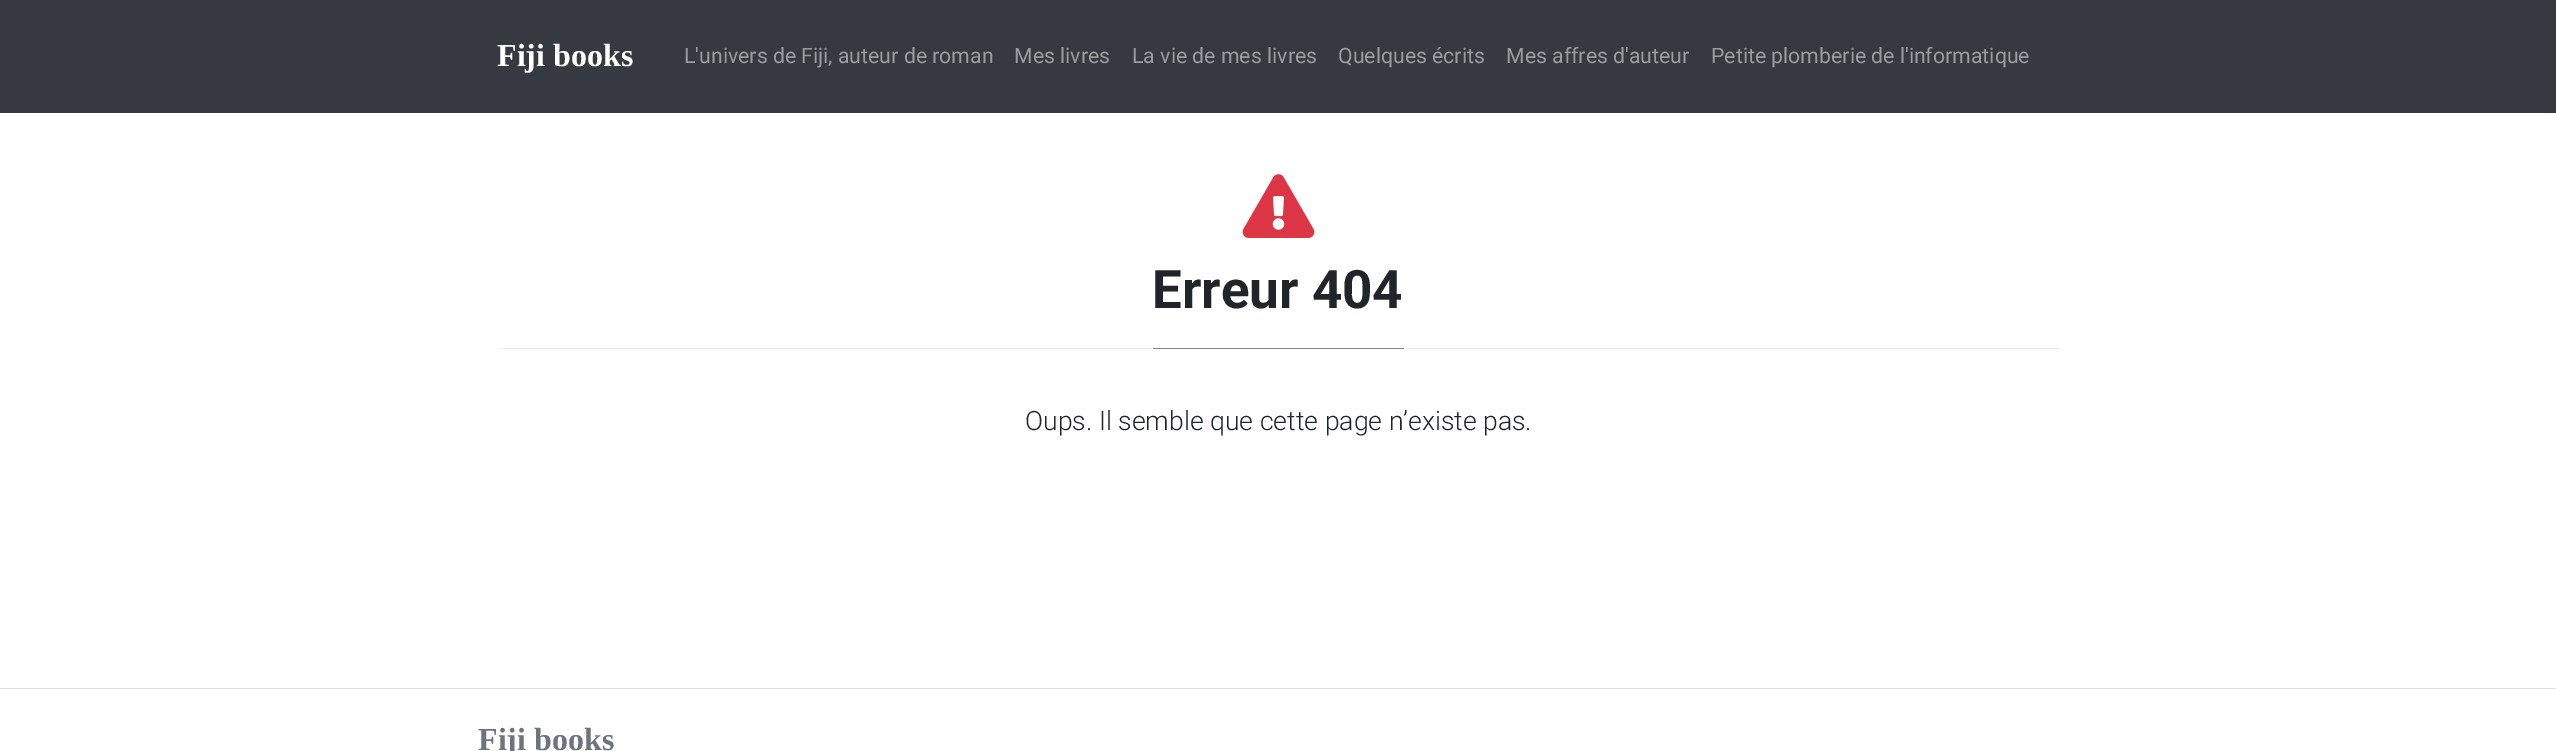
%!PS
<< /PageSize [2556 751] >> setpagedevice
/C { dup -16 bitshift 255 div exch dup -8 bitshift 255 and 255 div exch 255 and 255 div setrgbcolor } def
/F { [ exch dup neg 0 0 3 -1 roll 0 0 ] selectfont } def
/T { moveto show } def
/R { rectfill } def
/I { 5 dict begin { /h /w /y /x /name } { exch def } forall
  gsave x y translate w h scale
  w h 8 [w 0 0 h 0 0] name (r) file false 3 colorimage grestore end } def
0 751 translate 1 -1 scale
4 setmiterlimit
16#FFFFFF C
0 0 2556 751 R
16#343A40 C
0 0 2556 113 R
/LiberationSerif-Bold 32 F
16#FFFFFF C
(Fiji books) 497 66 T
/Roboto-Regular 21.25 F
16#9A9DA0 C
(L'univers de Fiji, auteur de roman) 684 63 T
(Mes livres) 1014 63 T
(La vie de mes livres) 1132 63 T
(Quelques écrits) 1338 63 T
(Mes affres d'auteur) 1506 63 T
(Petite plomberie de l'informatique) 1711 63 T
(1.rgb) 1242 174 73 64 I
16#E8F3EC C
498 348 1562 1 R
16#828884 C
1153 348 251 1 R
/Roboto-Bold 53 F
16#212529 C
(Erreur 404) 1152 308 T
/Roboto-Light 26.6 F
(Oups. Il semble que cette page n’existe pas.) 1025 430 T
16#DEE2E6 C
0 688 2556 1 R
/LiberationSerif-Bold 32 F
16#6C757D C
(Fiji books) 478 750 T
showpage
